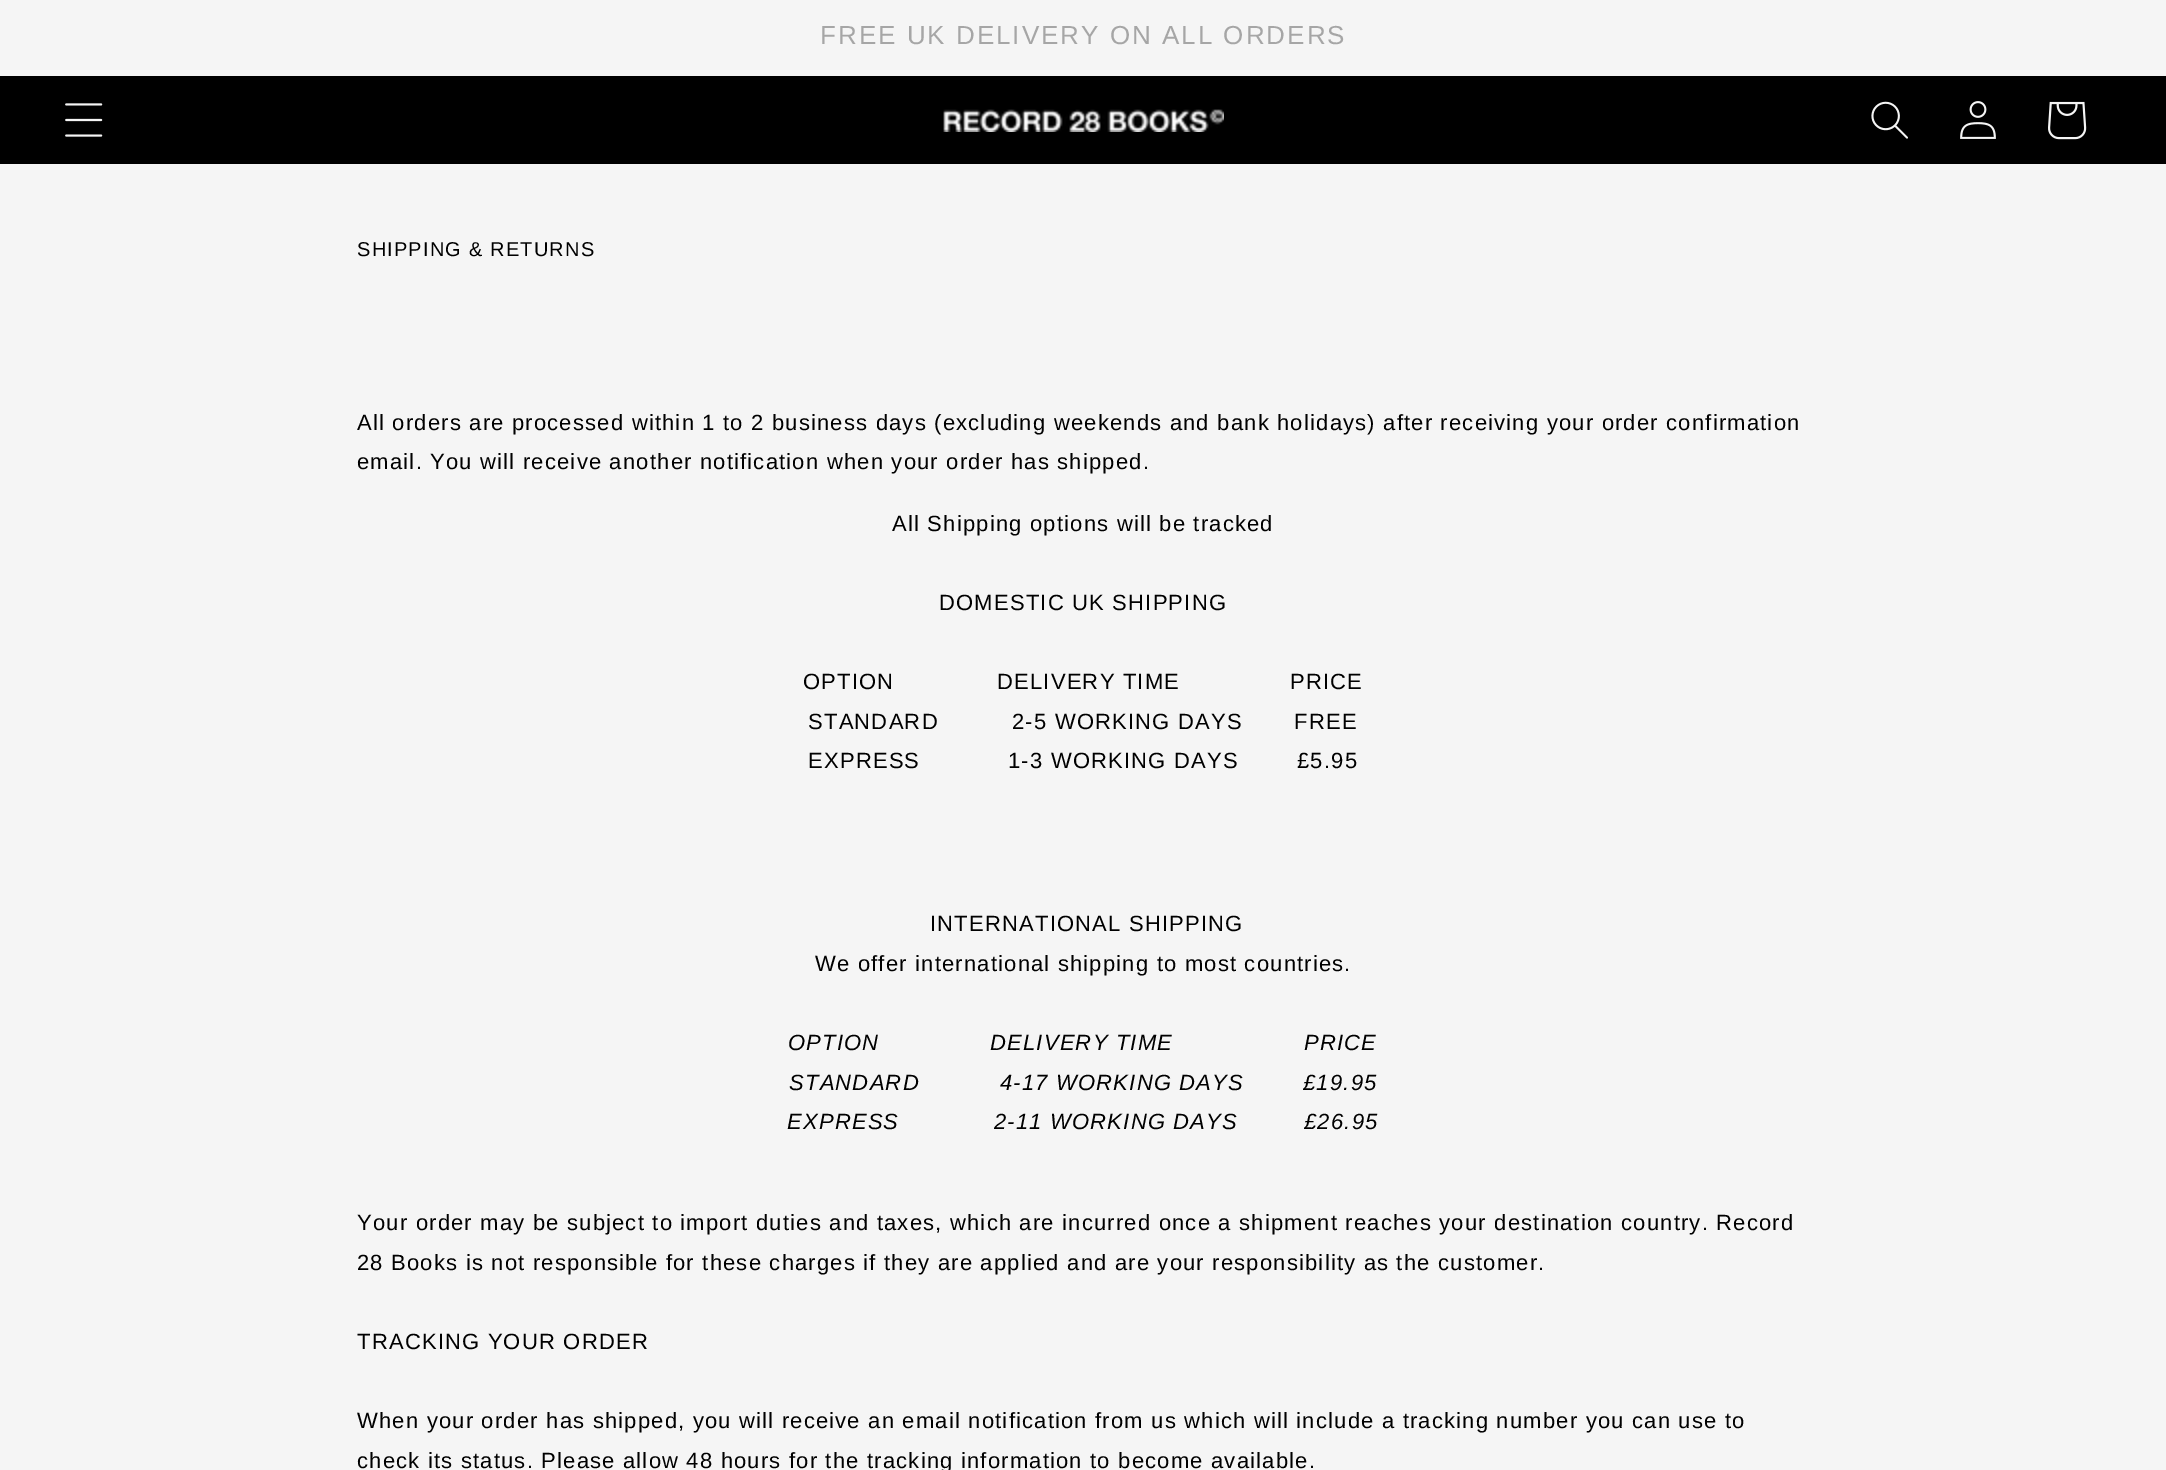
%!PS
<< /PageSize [2166 1470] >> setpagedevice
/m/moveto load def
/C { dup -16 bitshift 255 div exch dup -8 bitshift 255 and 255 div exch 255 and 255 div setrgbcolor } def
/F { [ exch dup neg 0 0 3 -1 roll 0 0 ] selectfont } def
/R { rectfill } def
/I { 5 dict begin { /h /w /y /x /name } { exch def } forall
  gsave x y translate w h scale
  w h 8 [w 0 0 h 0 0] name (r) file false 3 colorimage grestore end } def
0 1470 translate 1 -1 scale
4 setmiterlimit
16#F5F5F5 C
0 0 2166 1470 R
/LiberationSans-Regular 26 F
16#A6A6A6 C
820 44 m 2 0 (FREE UK DELIVERY ON ALL ORDERS) ashow
16#000000 C
0 76 2166 88 R
(1.rgb) 65 103 38 34 I
(2.rgb) 943 109 281 23 I
(3.rgb) 1871 101 37 38 I
(4.rgb) 1960 101 36 38 I
(5.rgb) 2048 101 39 39 I
/LiberationSans-Regular 20 F
357 256 m 1.2 0 (SHIPPING & RETURNS) ashow
/LiberationSans-Regular 22 F
357 430 m 1.2 0 (All orders are processed within 1 to 2 business days \(excluding weekends and bank holidays\) after receiving your order confirmation) ashow
357 469 m 1.2 0 (email. You will receive another notification when your order has shipped.) ashow
892 531 m 1.2 0 (All Shipping options will be tracked) ashow
939 610 m 1.2 0 (DOMESTIC UK SHIPPING) ashow
803 689 m 1.2 0 (OPTION) ashow
997 689 m 1.2 0 (DELIVERY TIME) ashow
1290 689 m 1.2 0 (PRICE) ashow
808 729 m 1.2 0 (STANDARD) ashow
1012 729 m 1.2 0 (2-5 WORKING DAYS) ashow
1294 729 m 1.2 0 (FREE) ashow
808 768 m 1.2 0 (EXPRESS) ashow
1008 768 m 1.2 0 (1-3 WORKING DAYS) ashow
1297 768 m 1.2 0 (£5.95) ashow
930 931 m 1.2 0 (INTERNATIONAL SHIPPING) ashow
815 971 m 1.2 0 (We offer international shipping to most countries.) ashow
/LiberationSans-Italic 22 F
788 1050 m 1.2 0 (OPTION) ashow
990 1050 m 1.2 0 (DELIVERY TIME) ashow
1304 1050 m 1.2 0 (PRICE) ashow
789 1090 m 1.2 0 (STANDARD) ashow
1000 1090 m 1.2 0 (4-17 WORKING DAYS) ashow
1303 1090 m 1.2 0 (£19.95) ashow
787 1129 m 1.2 0 (EXPRESS) ashow
994 1129 m 1.2 0 (2-11 WORKING DAYS) ashow
1304 1129 m 1.2 0 (£26.95) ashow
/LiberationSans-Regular 22 F
357 1230 m 1.2 0 (Your order may be subject to import duties and taxes, which are incurred once a shipment reaches your destination country. Record) ashow
357 1270 m 1.2 0 (28 Books is not responsible for these charges if they are applied and are your responsibility as the customer.) ashow
357 1349 m 1.2 0 (TRACKING YOUR ORDER) ashow
357 1428 m 1.2 0 (When your order has shipped, you will receive an email notification from us which will include a tracking number you can use to) ashow
357 1468 m 1.2 0 (check its status. Please allow 48 hours for the tracking information to become available.) ashow
showpage
